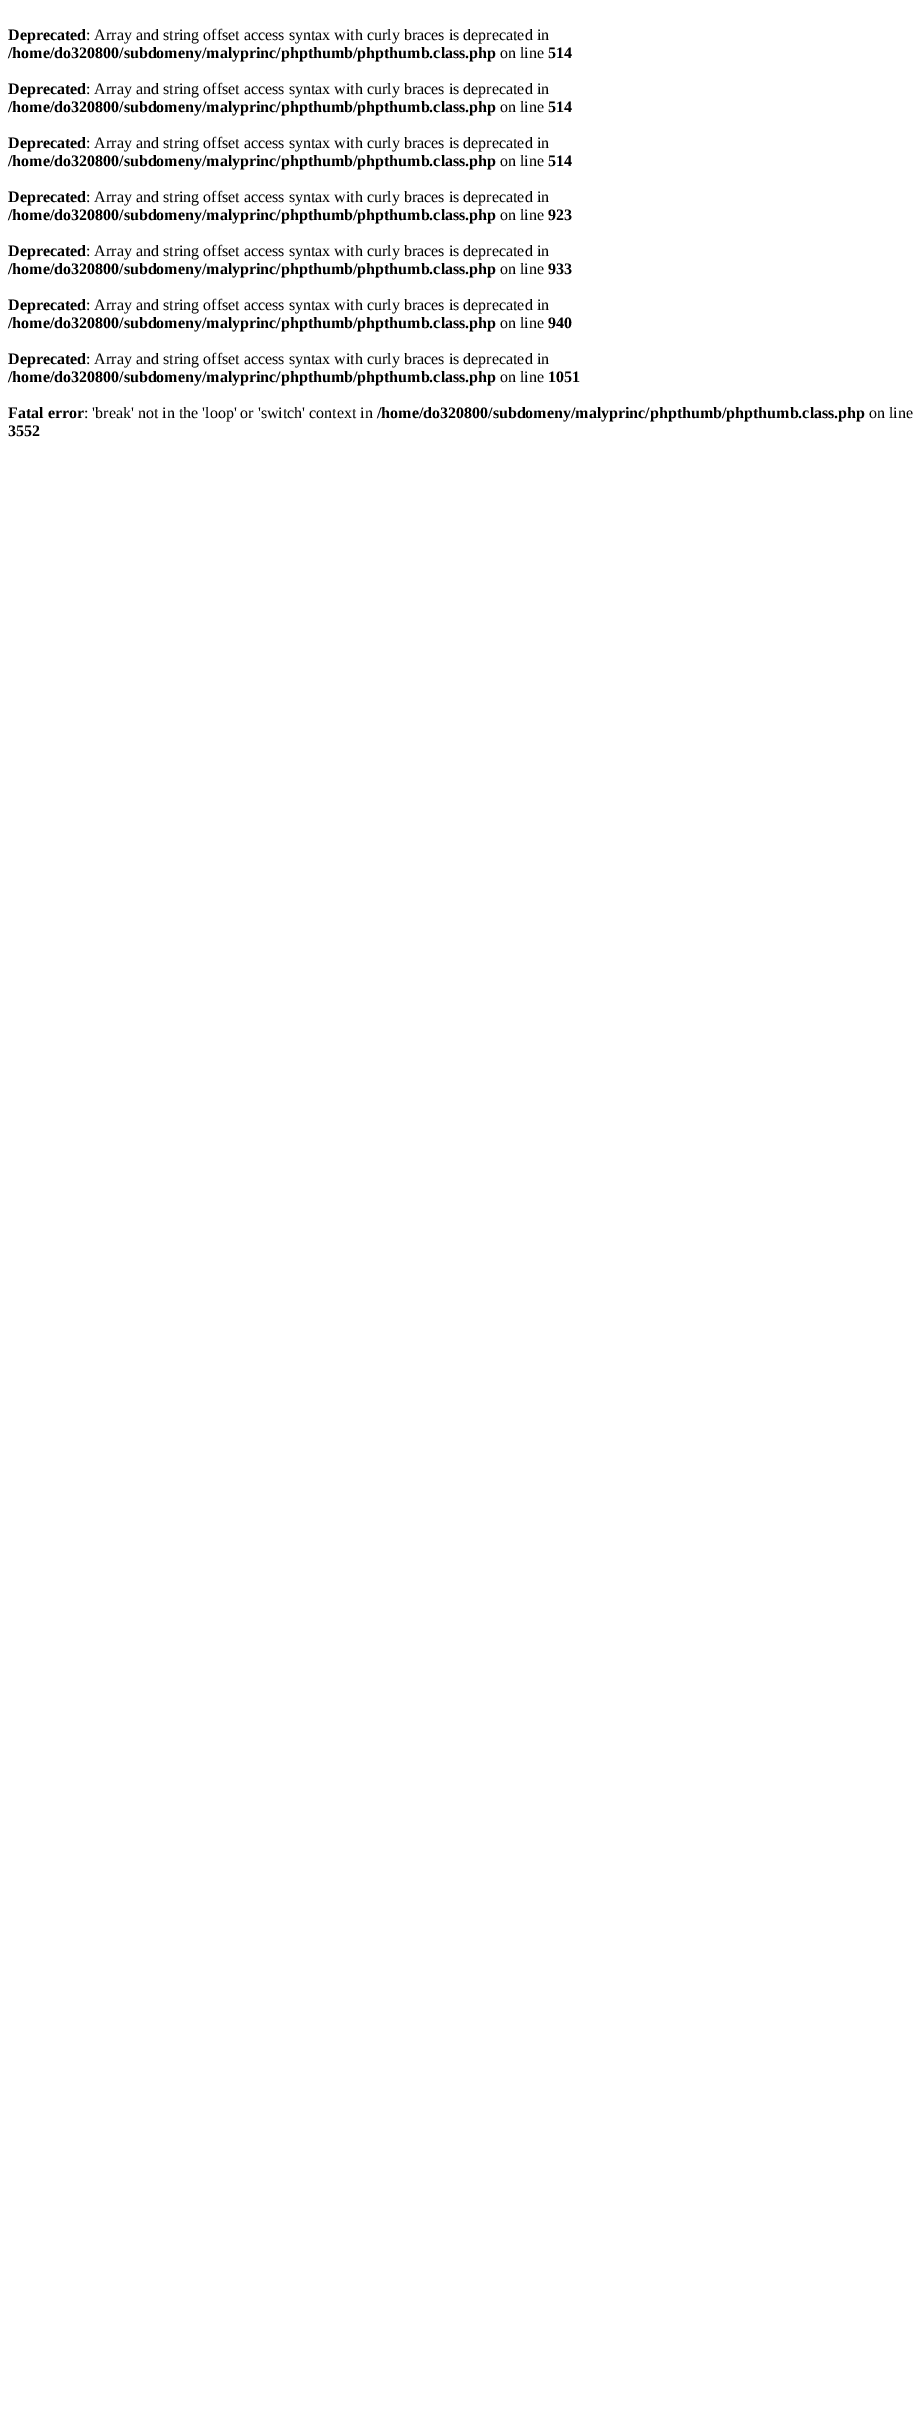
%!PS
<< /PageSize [921 2426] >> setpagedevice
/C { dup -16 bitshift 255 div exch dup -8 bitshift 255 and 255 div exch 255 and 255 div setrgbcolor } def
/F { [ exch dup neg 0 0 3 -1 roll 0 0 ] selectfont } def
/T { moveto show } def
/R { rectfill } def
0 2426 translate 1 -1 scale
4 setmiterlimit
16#FFFFFF C
0 0 921 2426 R
/LiberationSerif-Bold 16 F
16#000000 C
(Deprecated) 8 40 T
/LiberationSerif-Regular 16 F
(: Array and string offset access syntax with curly braces is deprecated in) 86 40 T
/LiberationSerif-Bold 16 F
(/home/do320800/subdomeny/malyprinc/phpthumb/phpthumb.class.php) 8 58 T
/LiberationSerif-Regular 16 F
(on line) 500 58 T
/LiberationSerif-Bold 16 F
(514) 548 58 T
(Deprecated) 8 94 T
/LiberationSerif-Regular 16 F
(: Array and string offset access syntax with curly braces is deprecated in) 86 94 T
/LiberationSerif-Bold 16 F
(/home/do320800/subdomeny/malyprinc/phpthumb/phpthumb.class.php) 8 112 T
/LiberationSerif-Regular 16 F
(on line) 500 112 T
/LiberationSerif-Bold 16 F
(514) 548 112 T
(Deprecated) 8 148 T
/LiberationSerif-Regular 16 F
(: Array and string offset access syntax with curly braces is deprecated in) 86 148 T
/LiberationSerif-Bold 16 F
(/home/do320800/subdomeny/malyprinc/phpthumb/phpthumb.class.php) 8 166 T
/LiberationSerif-Regular 16 F
(on line) 500 166 T
/LiberationSerif-Bold 16 F
(514) 548 166 T
(Deprecated) 8 202 T
/LiberationSerif-Regular 16 F
(: Array and string offset access syntax with curly braces is deprecated in) 86 202 T
/LiberationSerif-Bold 16 F
(/home/do320800/subdomeny/malyprinc/phpthumb/phpthumb.class.php) 8 220 T
/LiberationSerif-Regular 16 F
(on line) 500 220 T
/LiberationSerif-Bold 16 F
(923) 548 220 T
(Deprecated) 8 256 T
/LiberationSerif-Regular 16 F
(: Array and string offset access syntax with curly braces is deprecated in) 86 256 T
/LiberationSerif-Bold 16 F
(/home/do320800/subdomeny/malyprinc/phpthumb/phpthumb.class.php) 8 274 T
/LiberationSerif-Regular 16 F
(on line) 500 274 T
/LiberationSerif-Bold 16 F
(933) 548 274 T
(Deprecated) 8 310 T
/LiberationSerif-Regular 16 F
(: Array and string offset access syntax with curly braces is deprecated in) 86 310 T
/LiberationSerif-Bold 16 F
(/home/do320800/subdomeny/malyprinc/phpthumb/phpthumb.class.php) 8 328 T
/LiberationSerif-Regular 16 F
(on line) 500 328 T
/LiberationSerif-Bold 16 F
(940) 548 328 T
(Deprecated) 8 364 T
/LiberationSerif-Regular 16 F
(: Array and string offset access syntax with curly braces is deprecated in) 86 364 T
/LiberationSerif-Bold 16 F
(/home/do320800/subdomeny/malyprinc/phpthumb/phpthumb.class.php) 8 382 T
/LiberationSerif-Regular 16 F
(on line) 500 382 T
/LiberationSerif-Bold 16 F
(1051) 548 382 T
(Fatal error) 8 418 T
/LiberationSerif-Regular 16 F
(: 'break' not in the 'loop' or 'switch' context in) 84 418 T
/LiberationSerif-Bold 16 F
(/home/do320800/subdomeny/malyprinc/phpthumb/phpthumb.class.php) 377 418 T
/LiberationSerif-Regular 16 F
(on line) 869 418 T
/LiberationSerif-Bold 16 F
(3552) 8 436 T
showpage
